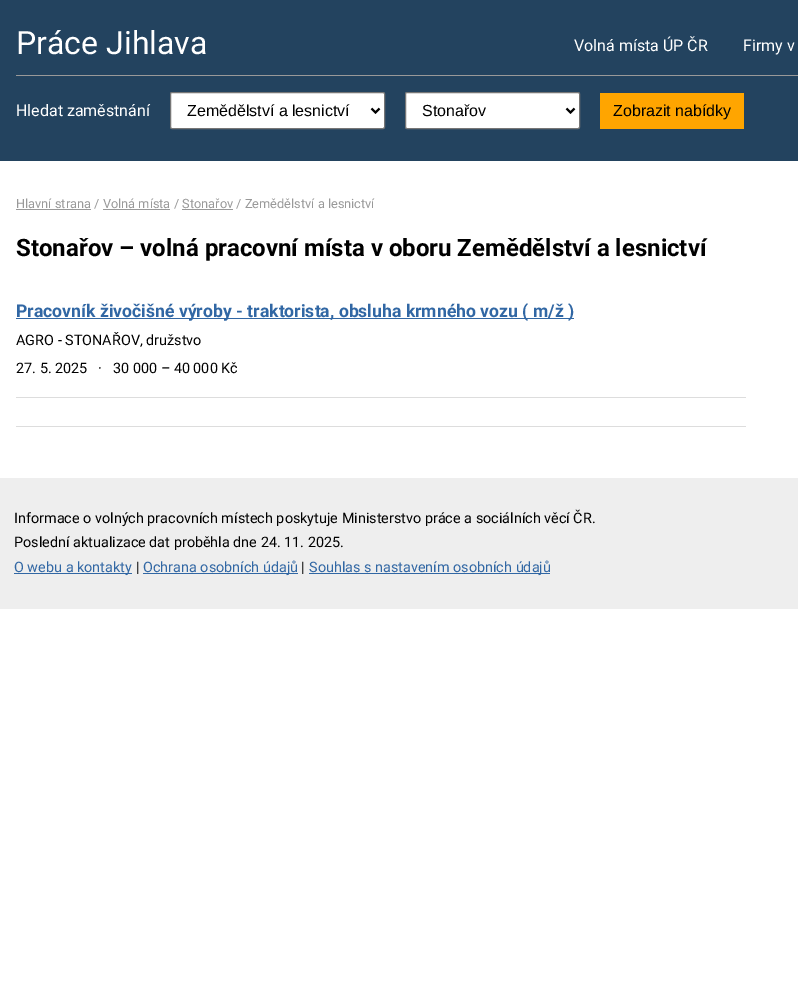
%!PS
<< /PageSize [798 996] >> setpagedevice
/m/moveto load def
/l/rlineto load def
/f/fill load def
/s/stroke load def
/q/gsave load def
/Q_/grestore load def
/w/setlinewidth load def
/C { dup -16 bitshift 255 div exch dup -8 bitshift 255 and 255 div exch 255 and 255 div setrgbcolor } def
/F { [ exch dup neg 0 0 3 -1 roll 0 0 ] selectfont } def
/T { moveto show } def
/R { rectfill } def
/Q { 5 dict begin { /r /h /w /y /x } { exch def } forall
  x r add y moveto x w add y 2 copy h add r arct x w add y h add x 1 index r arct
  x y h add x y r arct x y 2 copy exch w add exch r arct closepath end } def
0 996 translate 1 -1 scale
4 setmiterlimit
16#FFFFFF C
0 0 798 996 R
16#23435F C
0 0 798 161 R
/Roboto-Regular 32 F
16#FFFFFF C
(Práce Jihlava) 16 54 T
/Roboto-Regular 16 F
(Volná místa ÚP ČR) 574 51 T
(Firmy v) 743 51 T
16#999999 C
16 75 782 1 R
16#FFFFFF C
(Hledat zaměstnání) 16 116 T
170.5 92.5 214 36 1.5 Q q f Q_
16#767676 C
s
16#000000 C
2 w
371.5 108.5 m 4 4 l 4 -4 l s
/LiberationSans-Regular 16 F
(Zemědělství a lesnictví) 187 116 T
16#FFFFFF C
405.5 92.5 174 36 1.5 Q q f Q_
16#767676 C
1 w
s
16#000000 C
2 w
566.5 108.5 m 4 4 l 4 -4 l s
(Stonařov) 422 116 T
16#FFA500 C
600 93 144 36 R
16#000000 C
(Zobrazit nabídky) 613 116 T
/Roboto-Regular 12.8 F
16#999999 C
(Hlavní strana / Volná místa / Stonařov / Zemědělství a lesnictví) 16 208 T
16 209 75 1 R
103 209 67 1 R
182 209 51 1 R
/Roboto-Bold 24 F
16#000000 C
(Stonařov – volná pracovní místa v oboru Zemědělství a lesnictví) 16 256 T
16#DDDDDD C
16 397 730 1 R
16#3167A4 C
16 318 558 1 R
/Roboto-Bold 17.6 F
(Pracovník živočišné výroby - traktorista, obsluha krmného vozu \( m/ž \)) 16 317 T
/Roboto-Regular 14.4 F
16#000000 C
(AGRO - STONAŘOV, družstvo) 16 345 T
(27. 5. 2025) 16 373 T
(·) 98 373 T
(30 000 – 40 000 Kč) 113 373 T
16#DDDDDD C
16 426 730 1 R
16#EEEEEE C
0 478 798 131 R
16#000000 C
(Informace o volných pracovních místech poskytuje Ministerstvo práce a sociálních věcí ČR.) 14 523 T
(Poslední aktualizace dat proběhla dne 24. 11. 2025.) 14 547 T
16#3167A4 C
14 573 118 1 R
(O webu a kontakty) 14 572 T
16#000000 C
(|) 136 572 T
16#3167A4 C
143 573 155 1 R
(Ochrana osobních údajů) 143 572 T
16#000000 C
(|) 301 572 T
16#3167A4 C
309 573 241 1 R
(Souhlas s nastavením osobních údajů) 309 572 T
showpage
